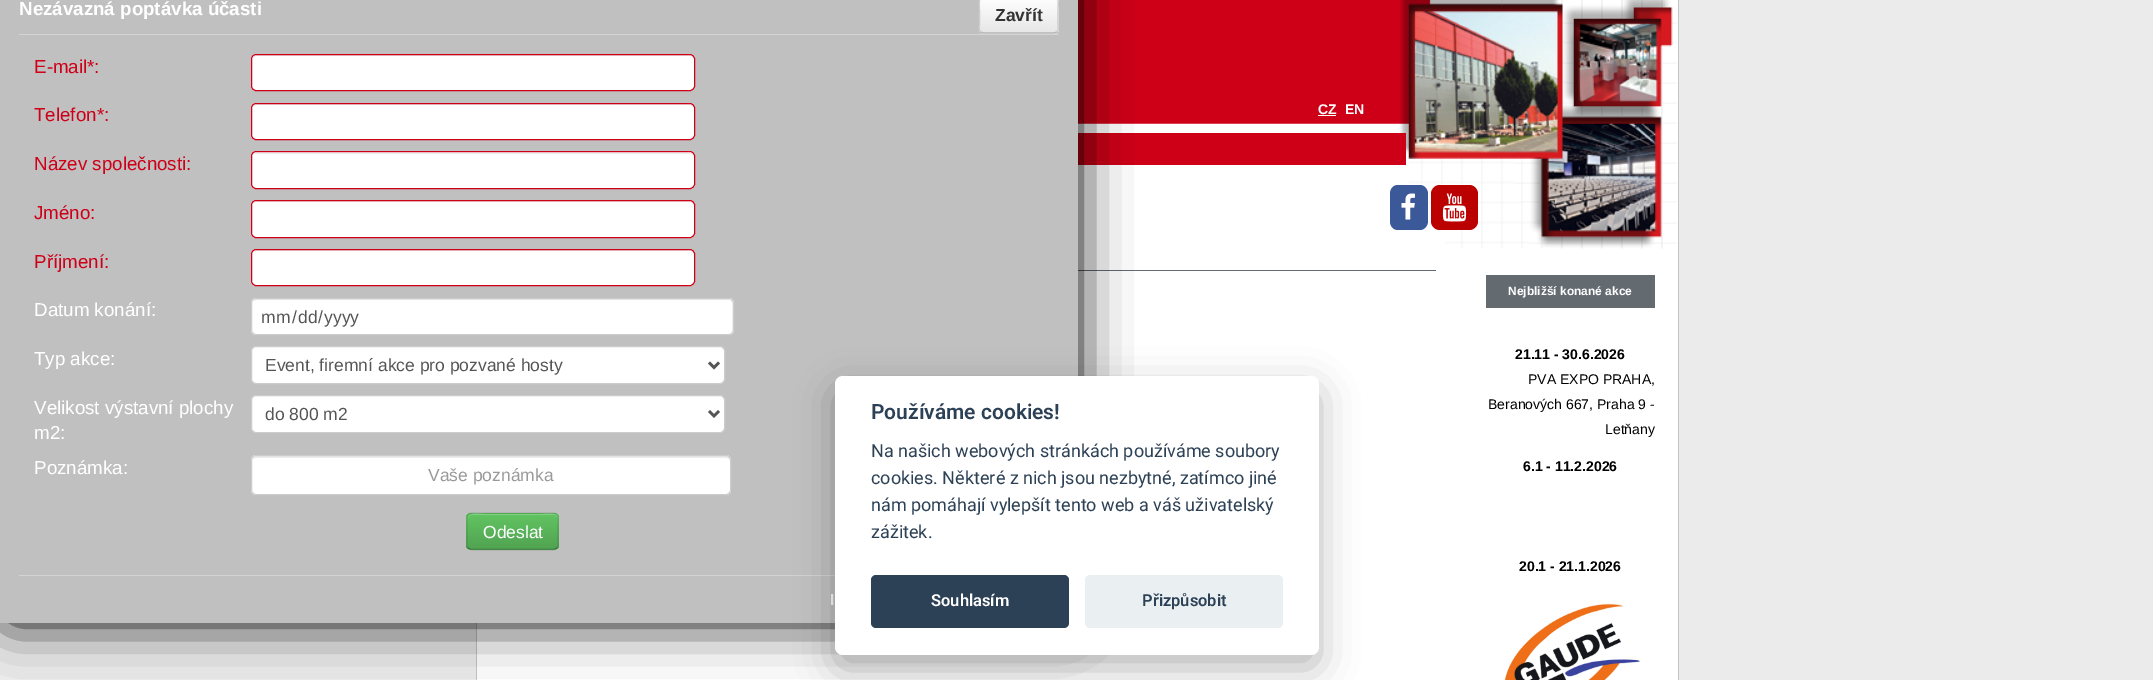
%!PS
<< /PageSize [2153 680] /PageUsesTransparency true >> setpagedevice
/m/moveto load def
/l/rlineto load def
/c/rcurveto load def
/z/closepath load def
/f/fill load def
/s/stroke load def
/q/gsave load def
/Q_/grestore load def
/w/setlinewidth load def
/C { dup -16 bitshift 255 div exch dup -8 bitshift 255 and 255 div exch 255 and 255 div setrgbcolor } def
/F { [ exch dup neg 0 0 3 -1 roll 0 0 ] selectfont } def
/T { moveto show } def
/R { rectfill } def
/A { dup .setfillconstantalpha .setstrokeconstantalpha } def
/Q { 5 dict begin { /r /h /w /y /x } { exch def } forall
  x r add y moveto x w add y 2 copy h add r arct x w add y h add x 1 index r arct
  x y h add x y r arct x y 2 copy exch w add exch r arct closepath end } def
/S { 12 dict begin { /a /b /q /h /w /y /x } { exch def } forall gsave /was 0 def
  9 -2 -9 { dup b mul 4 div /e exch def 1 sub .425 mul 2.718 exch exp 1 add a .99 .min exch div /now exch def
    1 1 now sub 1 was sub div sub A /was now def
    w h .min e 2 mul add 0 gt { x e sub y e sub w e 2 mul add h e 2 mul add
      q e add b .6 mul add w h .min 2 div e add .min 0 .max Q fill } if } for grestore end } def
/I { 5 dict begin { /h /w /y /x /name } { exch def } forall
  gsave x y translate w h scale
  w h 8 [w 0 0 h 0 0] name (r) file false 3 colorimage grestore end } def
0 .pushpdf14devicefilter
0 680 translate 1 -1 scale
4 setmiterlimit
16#EBEBEB C
0 0 2153 680 R
16#FFFFFF C
477 0 1201 680 R
(1.rgb) 1078 0 599 249 I
16#C2C5C7 C
476 623 1 57 R
16#CE0018 C
1078 133 328 32 R
16#636A70 C
1078 270 358 1 R
16#000000 C
0 -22 1078 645 13 25 1 S
16#C0C0C0 C
0 0 1078 623 R
16#D3D3D3 C
19 34 1040 1 R
/LiberationSans-Bold 18.75 F
16#FFFFFF C
(Nezávazná poptávka účasti) 19 15 T
16#F5F5F5 C
979 -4 80 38 5 Q f
q
979 -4 80 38 5 Q clip newpath
q 979 0 m 80 0 l 0 33 l -80 0 l z clip newpath
<< /ShadingType 2 /ColorSpace /DeviceRGB /Coords [1019 -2.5 1019 33] /Extend [true true] /Function << /FunctionType 2 /Domain [0 1] /C0 [1 1 1] /C1 [.902 .902 .902] /N 1 >> >> shfill Q_
Q_
16#B3B3B3 C
1.2 w
1057 32 m -3 1 l -70.5 0 l -3 -1 l s
16#CCCCCC C
980.5 32 m -2 -2 -1 -5.5 -1 -8 c 0 -9 l 0 -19.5 -3.5 -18 16 -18 c 46.5 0 l 19.5 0 16 -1.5 16 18 c 0 9 l 0 2.5 1 6 -1 8 c s
/LiberationSans-Bold 17.5 F
16#333333 C
(Zavřít) 995 21 T
/LiberationSans-Regular 18.75 F
16#CE0018 C
(E-mail*:) 34 73 T
16#FFFFFF C
251 54 444 37 5 Q f
16#ECECEC C
256 56 m 434 0 l 2 0 4 2 4 4 c 0 -1 l 0 -2 -2 -4 -4 -4 c -433 0 l -1 0 -3 1 -3 2 c z f
16#CE0018 C
1 w
251.5 54.5 443 36 4.5 Q s
(Telefon*:) 34 121 T
16#FFFFFF C
251 103 444 37 5 Q f
16#ECECEC C
256 105 m 434 0 l 2 0 4 2 4 4 c 0 -1 l 0 -2 -2 -4 -4 -4 c -433 0 l -1 0 -3 1 -3 2 c z f
16#CE0018 C
251.5 103.5 443 36 4.5 Q s
(Název společnosti:) 34 170 T
16#FFFFFF C
251 151 444 38 5 Q f
16#ECECEC C
256 154 m 434 0 l 2 0 4 1 4 4 c 0 -1 l 0 -2 -2 -4 -4 -4 c -433 0 l -1 0 -2 1 -3 1 c z f
16#CE0018 C
251.5 151.5 443 37 4.5 Q s
(Jméno:) 34 219 T
16#FFFFFF C
251 200 444 38 5 Q f
16#ECECEC C
256 202 m 434 0 l 2 0 4 2 4 4 c 0 -1 l 0 -2 -2 -4 -4 -4 c -433 0 l -1 0 -3 1 -3 2 c z f
16#CE0018 C
251.5 200.5 443 37 4.5 Q s
(Příjmení:) 34 268 T
16#FFFFFF C
251 249 444 37 5 Q f
16#ECECEC C
256 251 m 434 0 l 2 0 4 2 4 4 c 0 -1 l 0 -2 -2 -4 -4 -4 c -433 0 l -1 0 -3 1 -3 2 c z f
16#CE0018 C
251.5 249.5 443 36 4.5 Q s
16#FFFFFF C
(Datum konání:) 34 316 T
251 298 483 37 5 Q f
16#ECECEC C
256 300 m 473 0 l 5 0 3 11 3 13 c 0 20 l 0 -1 1 -2 1 -3 c 0 -27 l 0 -2 -2 -4 -4 -4 c -472 0 l -1 0 -3 1 -3 2 c z f
16#CCCCCC C
251.5 298.5 482 36 4.5 Q s
/LiberationSans-Regular 17.5 F
16#555555 C
(mm) 261 323 T
(/) 292 323 T
(dd) 298 323 T
(/) 318 323 T
(yyyy) 324 323 T
/LiberationSans-Regular 18.75 F
16#FFFFFF C
(Typ akce:) 34 365 T
251.5 346.5 473 37 4.5 Q q f Q_
16#CCCCCC C
s
16#555555 C
2.5 w
709 362.5 m 5 5 l 5 -5 l s
/LiberationSans-Regular 17.5 F
(Event, firemní akce pro pozvané hosty) 265 371 T
/LiberationSans-Regular 18.75 F
16#FFFFFF C
(Velikost výstavní plochy) 34 414 T
(m2:) 34 439 T
251.5 395.5 473 37 4.5 Q q f Q_
16#CCCCCC C
1 w
s
16#555555 C
2.5 w
709 411 m 5 5 l 5 -5 l s
/LiberationSans-Regular 17.5 F
(do 800 m2) 265 420 T
/LiberationSans-Regular 18.75 F
16#FFFFFF C
(Poznámka:) 34 474 T
251 455 480 40 5 Q f
16#ECECEC C
256 458 m 470 0 l 2 0 4 1 4 3 c 0 -1 l 0 -2 -2 -4 -4 -4 c -469 0 l -2 0 -3 1 -4 3 c z f
16#CCCCCC C
1 w
251.5 455.5 479 39 4.5 Q s
/LiberationSans-Regular 17.5 F
16#999999 C
(Vaše poznámka) 428 481 T
16#5BB75B C
466 513 93 37 5 Q f
q
466 513 93 37 5 Q clip newpath
q 466 514 m 93 0 l 0 35 l -93 0 l z clip newpath
<< /ShadingType 2 /ColorSpace /DeviceRGB /Coords [513 514 513 549] /Extend [true true] /Function << /FunctionType 2 /Domain [0 1] /C0 [.384 .769 .384] /C1 [.318 .639 .318] /N 1 >> >> shfill Q_
Q_
0.2 A
16#FFFFFF C
471 515 m 83 0 l 2 0 4 2 4 4 c 0 -8 -13 -5 -18 -5 c -54 0 l -5 0 -18 -3 -18 5 c 0 -2 1 -4 3 -4 c z f
0.25 A
16#000000 C
1.2 w
557 548 m -3 1.5 l -83 0 l -3 -1.5 l s
0.1 A
468 548 m -2 -2 -1 -5 -1 -7.5 c 0 -9.5 l 0 -20.5 -3 -18 18 -18 c 55 0 l 21 0 18 -2.5 18 18 c 0 9.5 l 0 2.5 1 5.5 -1 7.5 c s
1 A
16#FFFFFF C
(Odeslat) 483 538 T
16#D3D3D3 C
19 575 816 1 R
/LiberationSans-Bold 16 F
16#FFFFFF C
(I) 830 605 T
16#020203 C
835 389 484 279 8 19 .28 S
16#FFFFFF C
835 376 484 279 8 Q f
/Roboto-SemiBold 21 F
16#2D4156 C
(Používáme cookies!) 871 419 T
/Roboto-Regular 18 F
(Na našich webových stránkách používáme soubory) 871 457 T
(cookies. Některé z nich jsou nezbytné, zatímco jiné) 871 484 T
(nám pomáhají vylepšít tento web a váš uživatelský) 871 511 T
(zážitek.) 871 538 T
871 575 198 53 5 Q f
/Roboto-SemiBold 16.5 F
16#FFFFFF C
(Souhlasím) 931 606 T
16#EAEFF2 C
1085 575 198 53 5 Q f
16#2D4156 C
(Přizpůsobit) 1142 606 T
16#C2C5C7 C
1678 0 1 680 R
/LiberationSans-Bold 14 F
16#FFFFFF C
(CZ) 1318 114 T
1318 115 18 1 R
(EN) 1345 114 T
16#3B5998 C
1398 185 m 22 0 l 4 0 8 4 8 9 c 0 27 l 0 5 -4 9 -8 9 c -22 0 l -5 0 -8 -4 -8 -9 c 0 -27 l 0 -5 3 -9 8 -9 c z f
(2.rgb) 1401 193 14 27 I
16#BB0000 C
1431 185 47 45 9 Q f
(3.rgb) 1442 193 25 29 I
16#636A70 C
1486 275 169 33 R
/LiberationSans-Bold 12 F
16#FFFFFF C
(Nejbližší konané akce) 1508 295 T
/LiberationSans-Bold 14 F
16#000000 C
(21.11 - 30.6.2026) 1515 359 T
/LiberationSans-Regular 14 F
(PVA EXPO PRAHA,) 1528 384 T
(Beranových 667, Praha 9 -) 1488 409 T
(Letňany) 1605 434 T
/LiberationSans-Bold 14 F
(6.1 - 11.2.2026) 1523 471 T
(20.1 - 21.1.2026) 1519 571 T
(4.rgb) 1504 603 136 77 I
.poppdf14devicefilter showpage
